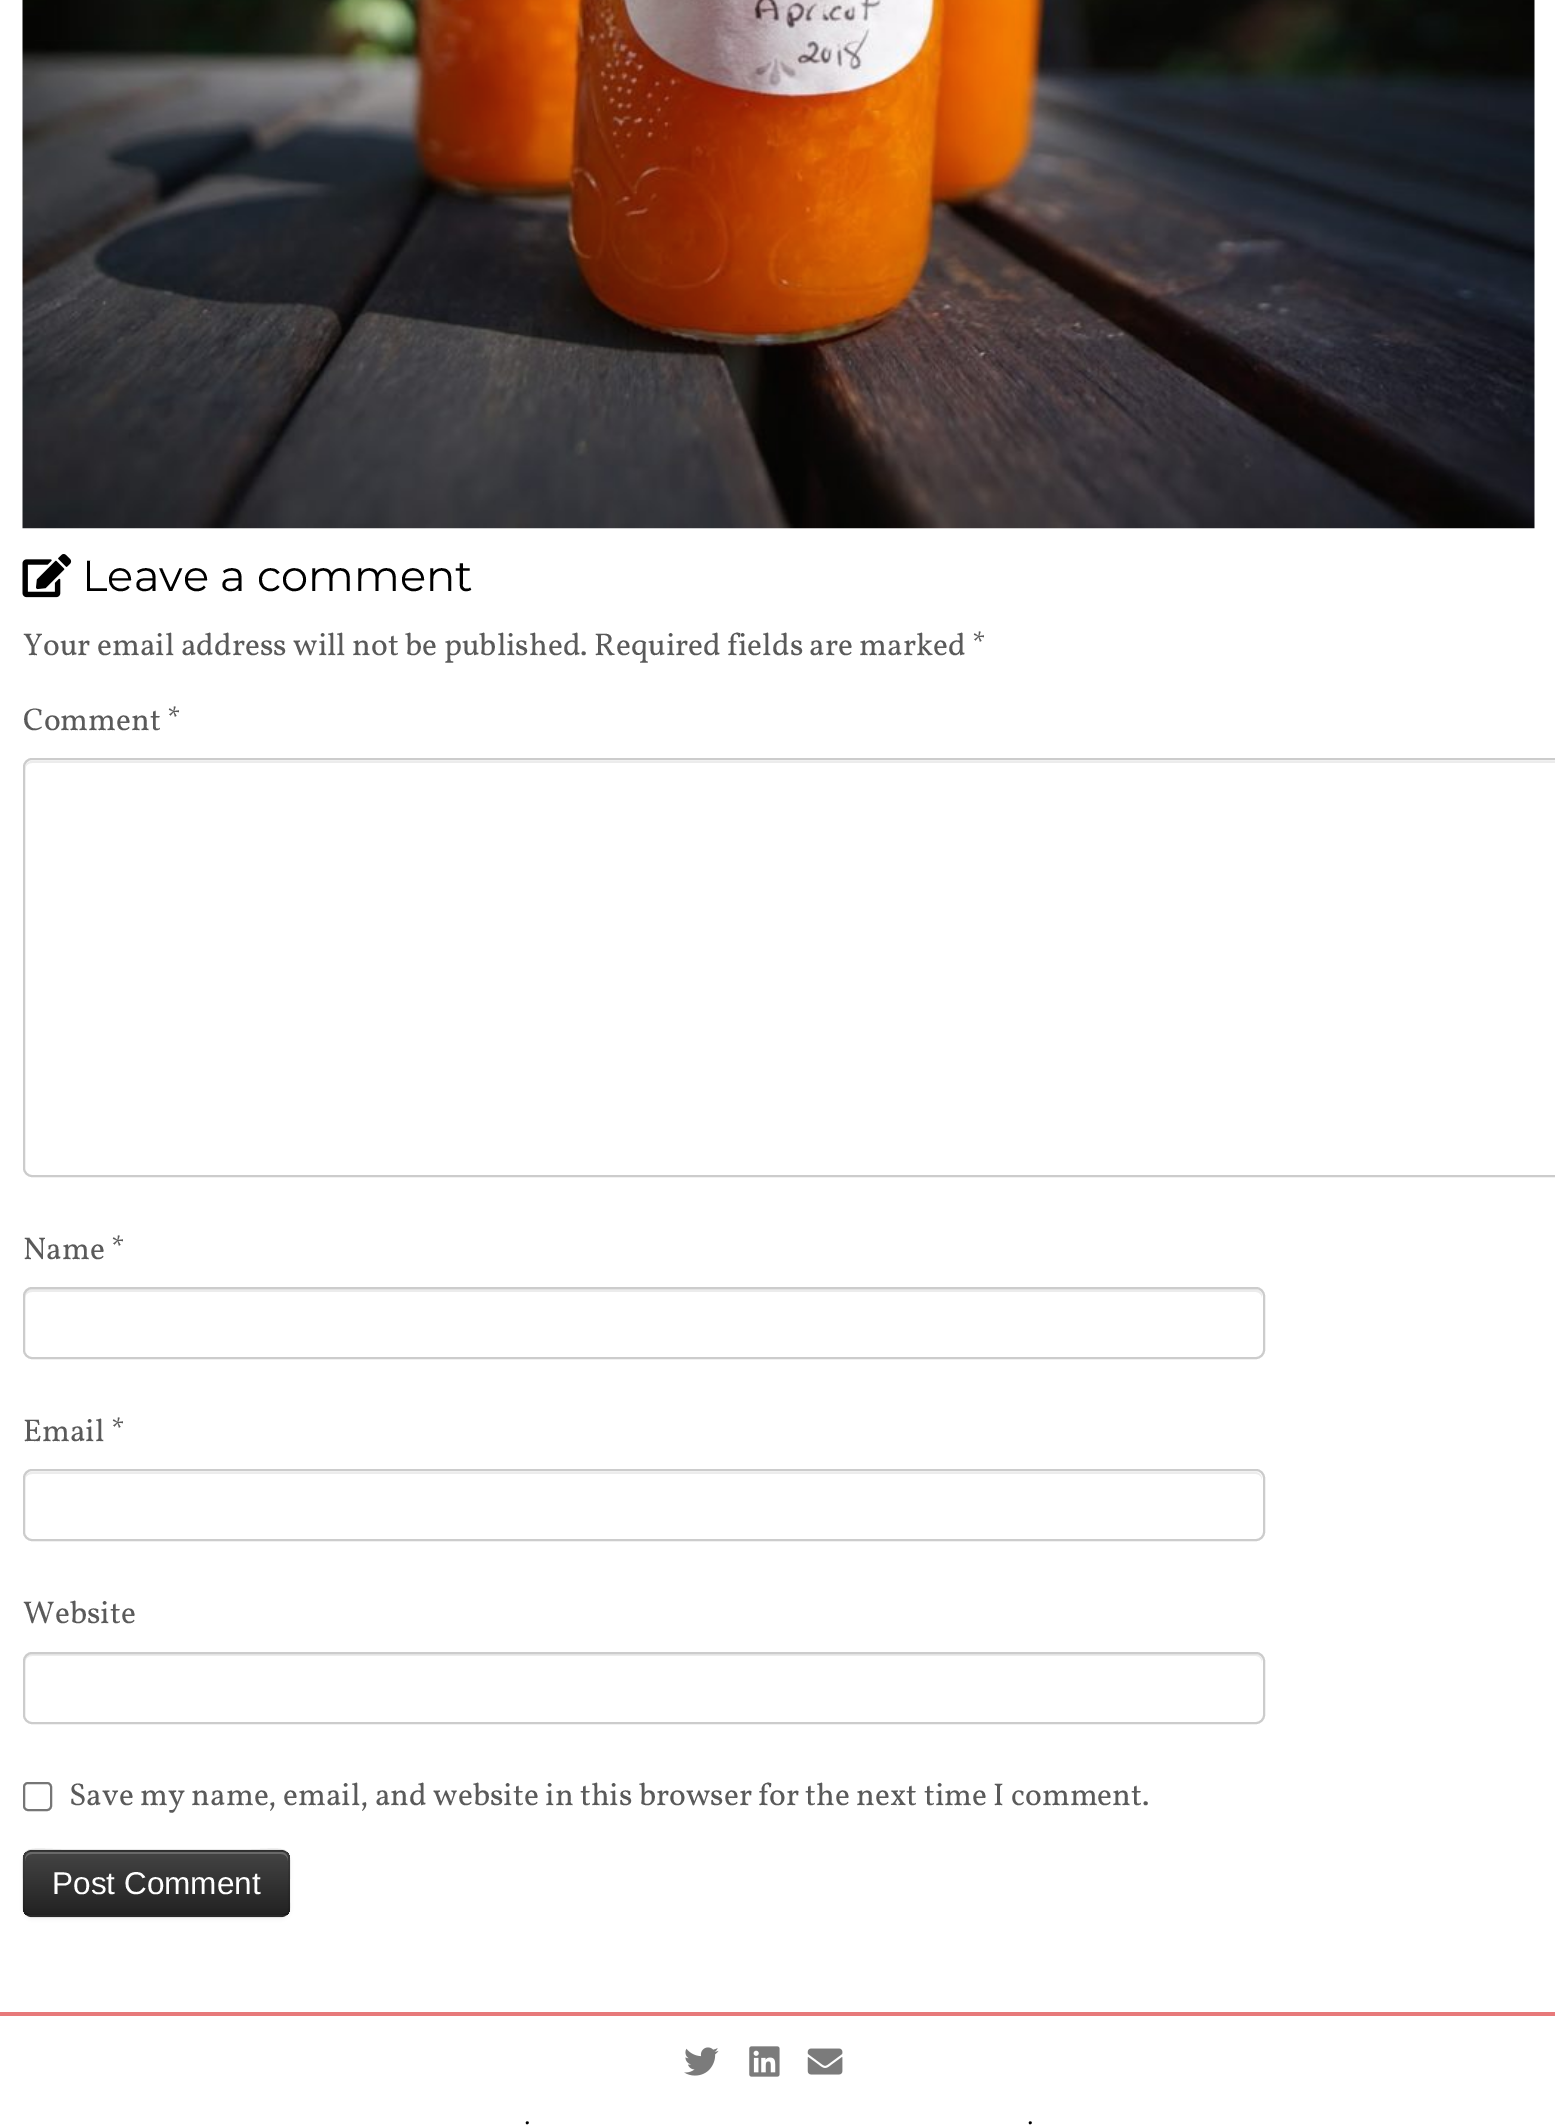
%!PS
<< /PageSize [1555 2125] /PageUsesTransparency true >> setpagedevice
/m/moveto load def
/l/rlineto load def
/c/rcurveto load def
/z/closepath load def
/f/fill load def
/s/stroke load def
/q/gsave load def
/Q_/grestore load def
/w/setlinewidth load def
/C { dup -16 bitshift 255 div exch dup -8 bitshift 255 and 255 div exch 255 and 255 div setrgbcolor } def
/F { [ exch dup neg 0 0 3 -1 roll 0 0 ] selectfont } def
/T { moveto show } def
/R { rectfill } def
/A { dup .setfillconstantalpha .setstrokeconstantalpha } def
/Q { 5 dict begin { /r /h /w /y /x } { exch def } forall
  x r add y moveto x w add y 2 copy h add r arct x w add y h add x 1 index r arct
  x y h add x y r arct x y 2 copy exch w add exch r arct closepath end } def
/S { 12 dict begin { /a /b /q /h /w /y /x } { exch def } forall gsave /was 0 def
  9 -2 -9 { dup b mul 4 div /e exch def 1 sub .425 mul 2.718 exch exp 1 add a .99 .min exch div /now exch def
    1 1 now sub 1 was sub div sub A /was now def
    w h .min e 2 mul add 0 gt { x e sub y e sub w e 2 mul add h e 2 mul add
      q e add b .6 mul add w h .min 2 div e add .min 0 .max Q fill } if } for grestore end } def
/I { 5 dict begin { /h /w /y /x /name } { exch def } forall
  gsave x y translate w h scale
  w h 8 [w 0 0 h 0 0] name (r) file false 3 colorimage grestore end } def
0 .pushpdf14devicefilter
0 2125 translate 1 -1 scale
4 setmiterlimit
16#FFFFFF C
0 0 1555 2125 R
(1.rgb) 22 0 1513 529 I
(2.rgb) 22 554 50 44 I
/Montserrat-Thin 43.25 F
16#000000 C
(Leave a comment) 82 591 T
/Vollkorn-Regular 31.5 F
16#5A5A5A C
(Your email address will not be published. Required fields are marked) 23 655 T
(*) 972 655 T
(Comment *) 23 730 T
16#ECECEC C
32 763 m 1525 0 l 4 0 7 3 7 7 c 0 -4 -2 -9 -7 -9 c -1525 0 l -5 0 -7 5 -7 9 c 0 -4 3 -7 7 -7 c z f
16#CCCCCC C
2 w
24 759 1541 417 8 Q s
16#5A5A5A C
(Name *) 23 1259 T
16#ECECEC C
32 1292 m 1224 0 l 3 0 6 3 6 6 c 0 -2 l 0 -4 -3 -7 -7 -7 c -1223 0 l -4 0 -7 3 -7 7 c 0 2 l 0 -3 3 -6 7 -6 c z f
16#CCCCCC C
24 1288 1240 70 8 Q s
16#5A5A5A C
(Email *) 23 1441 T
16#ECECEC C
32 1474 m 1224 0 l 3 0 6 3 6 6 c 0 -4 -2 -8 -7 -8 c -1223 0 l -5 0 -7 4 -7 8 c 0 -3 3 -6 7 -6 c z f
16#CCCCCC C
24 1470 1240 70 8 Q s
16#5A5A5A C
(Website) 23 1623 T
16#ECECEC C
32 1656 m 1224 0 l 3 0 6 3 6 7 c 0 -2 l 0 -4 -3 -7 -7 -7 c -1223 0 l -4 0 -7 3 -7 7 c 0 2 l 0 -4 3 -7 7 -7 c z f
16#CCCCCC C
24 1653 1240 70 8 Q s
16#767676 C
24 1783 27 27 4 Q s
16#5A5A5A C
(Save my name, email, and website in this browser for the next time I comment.) 69 1805 T
16#000000 C
23 1852 267 67 9 2 .05 S
16#363636 C
23 1850 267 67 9 Q f
q
23 1850 267 67 9 Q clip newpath
q 23 1852 m 267 0 l 0 63 l -267 0 l z clip newpath
<< /ShadingType 2 /ColorSpace /DeviceRGB /Coords [156 1852 156 1915] /Extend [true true] /Function << /FunctionType 2 /Domain [0 1] /C0 [.267 .267 .267] /C1 [.133 .133 .133] /N 1 >> >> shfill Q_
Q_
0.2 A
16#FFFFFF C
32 1854 m 249 0 l 4 0 7 3 7 7 c 0 -2 l 0 -4 -3 -7 -7 -7 c -249 0 l -4 0 -7 3 -7 7 c 0 2 l 0 -4 3 -7 7 -7 c z f
0.25 A
16#000000 C
2.2 w
287 1913.5 m -1.5 1.5 -3.5 2.5 -6 2.5 c -249.5 0 l -2 0 -4 -1 -5.5 -2.5 c s
0.1 A
26 1913.5 m -3.5 -3.5 -2.5 -9.5 -2.5 -13.5 c 0 -8.5 l 0 -51 -7.5 -41 49.5 -41 c 166.5 0 l 57.5 0 49.5 -10 49.5 41 c 0 8.5 l 0 4 1.5 10 -2 13.5 c s
/LiberationSans-Regular 31.5 F
1 A
16#FFFFFF C
(Post Comment) 52 1894 T
16#E7797A C
0 2012 1555 4 R
(3.rgb) 684 2047 35 29 I
(4.rgb) 749 2046 31 31 I
(5.rgb) 807 2048 36 27 I
/Vollkorn-Regular 28 F
16#000000 C
(·) 524 2130 T
(·) 1027 2130 T
.poppdf14devicefilter showpage
